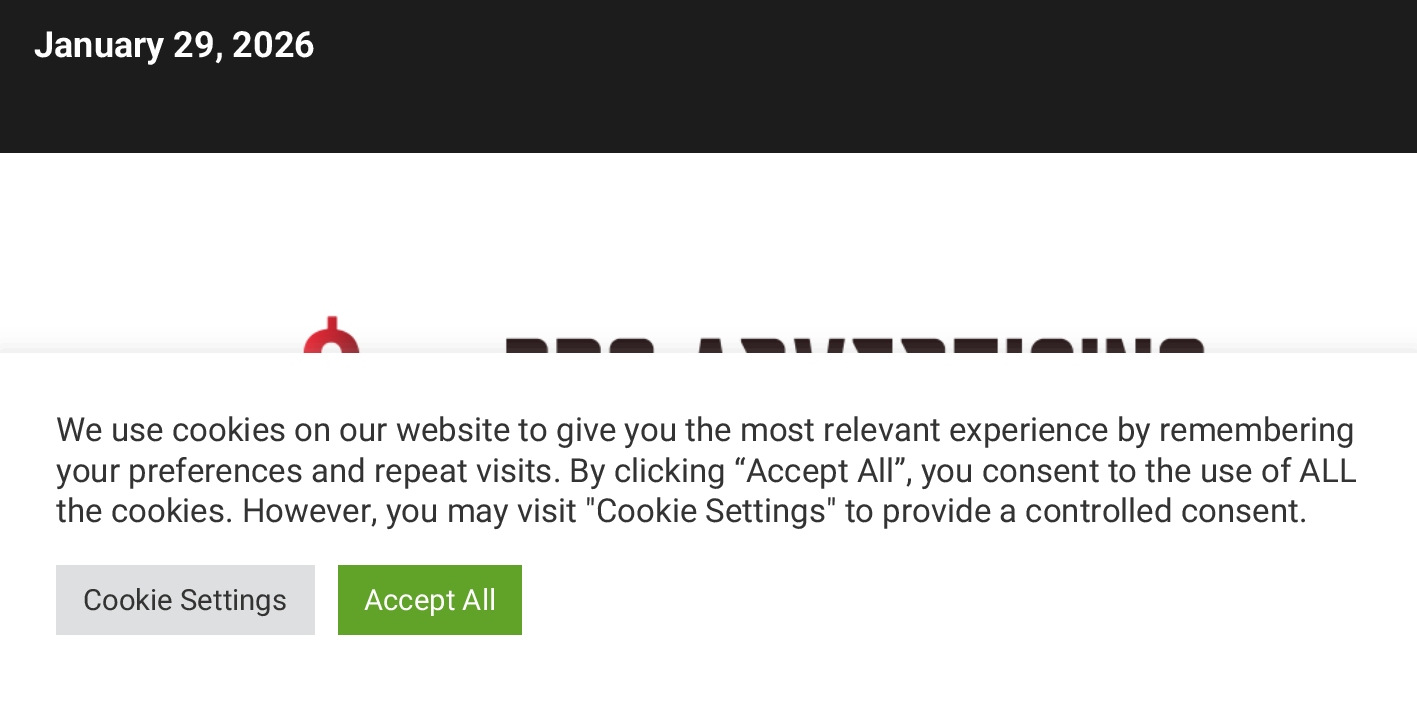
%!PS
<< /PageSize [1417 702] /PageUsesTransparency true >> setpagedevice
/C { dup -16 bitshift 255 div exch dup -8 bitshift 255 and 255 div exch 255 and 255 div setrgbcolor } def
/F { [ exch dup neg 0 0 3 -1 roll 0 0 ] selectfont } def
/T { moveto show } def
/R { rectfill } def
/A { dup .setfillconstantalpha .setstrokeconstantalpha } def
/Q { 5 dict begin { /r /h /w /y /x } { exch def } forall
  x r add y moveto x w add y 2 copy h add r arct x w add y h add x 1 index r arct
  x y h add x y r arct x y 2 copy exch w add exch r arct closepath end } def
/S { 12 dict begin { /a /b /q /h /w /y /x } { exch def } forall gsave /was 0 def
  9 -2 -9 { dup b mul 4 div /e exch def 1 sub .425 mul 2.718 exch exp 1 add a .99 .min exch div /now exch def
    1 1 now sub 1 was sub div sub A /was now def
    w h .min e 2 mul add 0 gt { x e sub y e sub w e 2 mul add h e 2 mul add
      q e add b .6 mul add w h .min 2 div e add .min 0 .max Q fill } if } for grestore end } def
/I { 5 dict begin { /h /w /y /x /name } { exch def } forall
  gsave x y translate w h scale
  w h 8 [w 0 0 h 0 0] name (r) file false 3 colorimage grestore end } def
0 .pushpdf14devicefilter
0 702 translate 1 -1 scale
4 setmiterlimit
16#FFFFFF C
0 0 1417 702 R
16#1C1C1C C
0 0 1417 153 R
/Roboto-Bold 36 F
16#FFFFFF C
(January 29, 2026) 34 57 T
(1.rgb) 303 315 902 38 I
16#ACABAB C
0 351 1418 349 0 11 .3 S
16#FFFFFF C
0 353 1417 349 R
/Roboto-Regular 33 F
16#333333 C
(We use cookies on our website to give you the most relevant experience by remembering) 56 441 T
(your preferences and repeat visits. By clicking “Accept All”, you consent to the use of ALL) 56 482 T
(the cookies. However, you may visit "Cookie Settings" to provide a controlled consent.) 56 522 T
16#DEDFE0 C
56 565 259 70 R
/Roboto-Regular 29.25 F
16#333333 C
(Cookie Settings) 83 610 T
16#61A229 C
338 565 184 70 R
16#FFFFFF C
(Accept All) 364 610 T
.poppdf14devicefilter showpage
